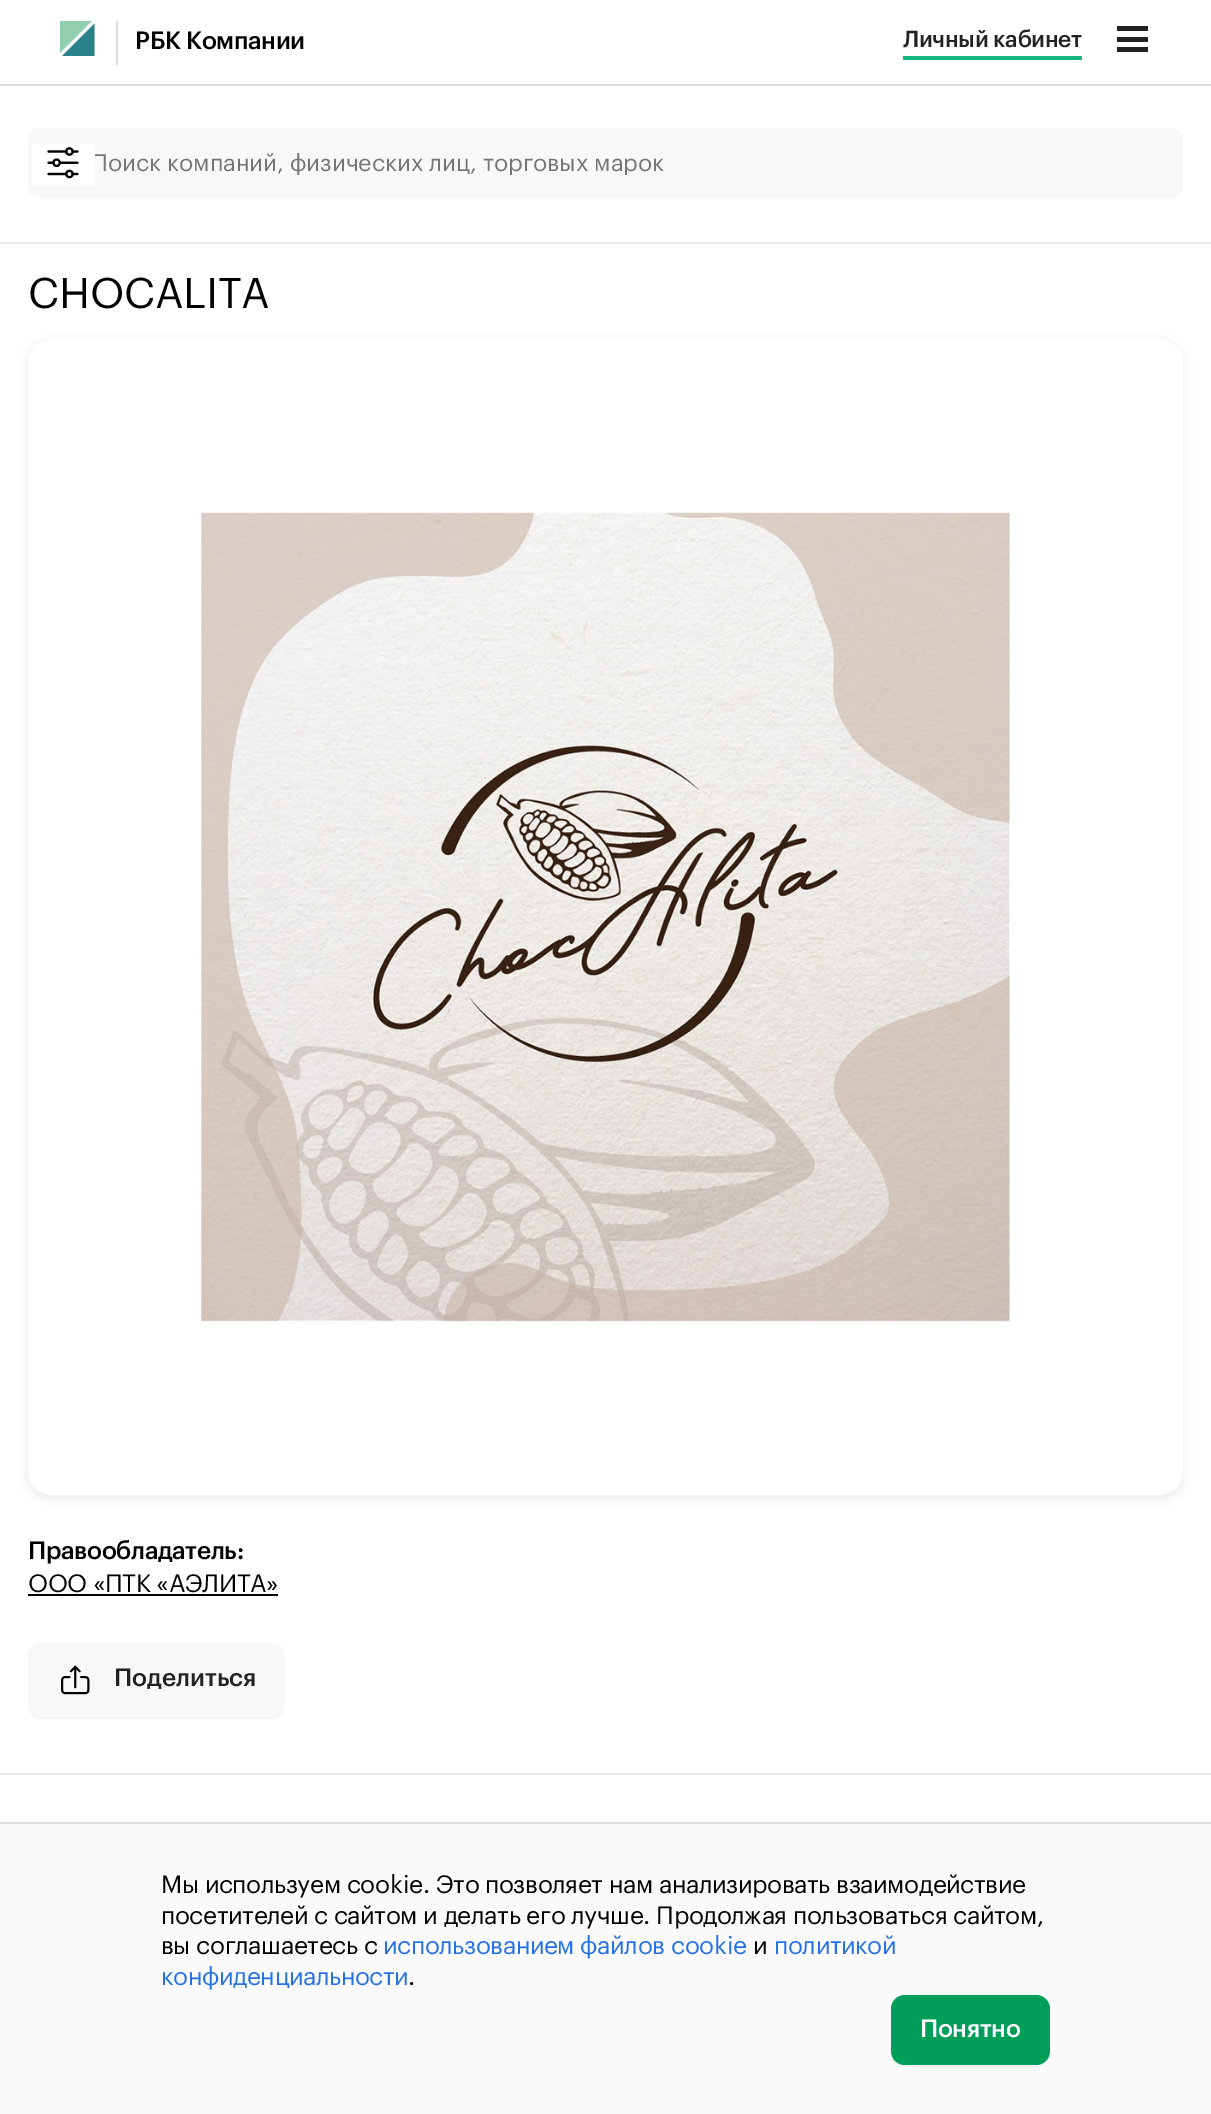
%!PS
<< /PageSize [1211 2114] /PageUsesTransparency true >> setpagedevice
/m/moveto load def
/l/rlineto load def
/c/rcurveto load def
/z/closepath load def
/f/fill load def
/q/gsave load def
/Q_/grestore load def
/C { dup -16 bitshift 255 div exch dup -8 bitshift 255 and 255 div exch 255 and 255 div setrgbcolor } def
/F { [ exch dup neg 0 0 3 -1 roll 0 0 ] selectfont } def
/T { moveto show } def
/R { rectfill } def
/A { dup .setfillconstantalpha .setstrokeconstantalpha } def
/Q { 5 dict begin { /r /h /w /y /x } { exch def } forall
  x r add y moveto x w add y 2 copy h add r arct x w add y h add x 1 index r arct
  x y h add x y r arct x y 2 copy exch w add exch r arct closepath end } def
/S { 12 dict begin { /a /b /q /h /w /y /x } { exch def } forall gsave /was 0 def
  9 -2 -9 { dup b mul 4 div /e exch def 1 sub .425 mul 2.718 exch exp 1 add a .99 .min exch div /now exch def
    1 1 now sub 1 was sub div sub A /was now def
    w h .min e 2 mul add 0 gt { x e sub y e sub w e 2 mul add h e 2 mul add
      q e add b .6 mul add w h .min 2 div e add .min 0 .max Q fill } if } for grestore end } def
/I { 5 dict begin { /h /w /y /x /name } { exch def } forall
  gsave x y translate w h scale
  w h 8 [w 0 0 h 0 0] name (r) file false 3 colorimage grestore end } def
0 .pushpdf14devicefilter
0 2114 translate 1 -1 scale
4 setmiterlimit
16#FFFFFF C
0 0 1211 2114 R
16#DDDDDD C
0 84 1211 2 R
q
60 21 35 35 rectclip
16#92CFAE C
59.5 21 m 0 32.5 l 32.5 -32.5 l z eofill
Q_
16#2A8288 C
62 56 m 32.5 0 l 0 -32.5 l z eofill
16#DDDDDD C
116 21 2 44 R
/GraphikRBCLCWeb-Medium 24.5 F
16#000000 C
135 49 m -.35 0 (РБК Компании) ashow
/GraphikRBCLCWeb-Medium 22.75 F
16#222222 C
903 47 m -.35 0 (Личный кабинет) ashow
16#16B67F C
903 56 179 4 R
16#222222 C
1117 26 31 5 R
1117 37 31 5 R
1117 47 31 5 R
16#EBEBEB C
0 242 1211 2 R
16#F8F8F8 C
28 128 1155 70 11 Q f
q
91 152 1075 23 rectclip
/GraphikRBCLCWeb-Regular 23.3 F
16#757575 C
(Поиск компаний, физических лиц, торговых марок) 91 171 T
Q_
16#FFFFFF C
32 144 63 42 R
(1.rgb) 47 147 32 32 I
16#EBEBEB C
0 1773 1211 2 R
/GraphikRBCLCWeb-Regular 42 F
16#000000 C
28 308 m -.35 0 (CHOCALITA) ashow
q
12 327 m 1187 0 l 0 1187 l -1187 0 l z 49 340 m 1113 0 l 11.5 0 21 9.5 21 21 c 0 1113 l 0 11.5 -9.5 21 -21 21 c -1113 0 l -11.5 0 -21 -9.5 -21 -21 c 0 -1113 l 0 -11.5 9.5 -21 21 -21 c z eoclip newpath
28 343 1155 1155 21 5 .08 S
Q_
(2.rgb) 201 512 809 810 I
/GraphikRBCLCWeb-Medium 24.5 F
28 1559 m -.35 0 (Правообладатель:) ashow
/GraphikRBCLCWeb-Regular 24.5 F
28 1592 m -.35 0 (ООО «ПТК «АЭЛИТА») ashow
28 1594 250 2 R
16#F6F6F6 C
28 1703 m 0 2 l 0 8 6 14 14 14 c 229 0 l 8 0 14 -6 14 -14 c -1 7 -7 12 -14 12 c -229 0 l -8 0 -14 -7 -14 -14 c z f
16#F8F8F8 C
28 1643 257 74 14 Q f
(3.rgb) 61 1665 29 30 I
/GraphikRBCLCWeb-Medium 24.5 F
16#222222 C
(Поделиться) 114 1686 T
16#FAFAFA C
0 1824 1211 290 R
16#DDDDDD C
0 1822 1211 2 R
/GraphikRBCLCWeb-Regular 24.5 F
16#000000 C
161 1893 m -.35 0 (Мы используем cookie. Это позволяет нам анализировать взаимодействие) ashow
161 1924 m -.35 0 (посетителей с сайтом и делать его лучше. Продолжая пользоваться сайтом,) ashow
161 1954 m -.35 0 (вы соглашаетесь с) ashow
16#2471E5 C
383 1954 m -.35 0 (использованием файлов cookie) ashow
16#000000 C
753 1954 m -.35 0 (и) ashow
16#2471E5 C
774 1954 m -.35 0 (политикой) ashow
161 1985 m -.35 0 (конфиденциальности) ashow
16#000000 C
408 1985 m -.35 0 (.) ashow
16#F1F1F1 C
891 2054 m 0 7 7 13 14 13 c 131 0 l 8 0 14 -6 14 -14 c 0 -2 l 0 8 -6 14 -14 14 c -131 0 l -7 0 -13 -5 -14 -11 c z f
16#009E59 C
891 1995 159 70 14 Q f
/GraphikRBCLCWeb-Medium 24.5 F
16#FFFFFF C
920 2037 m -.35 0 (Понятно) ashow
.poppdf14devicefilter showpage
